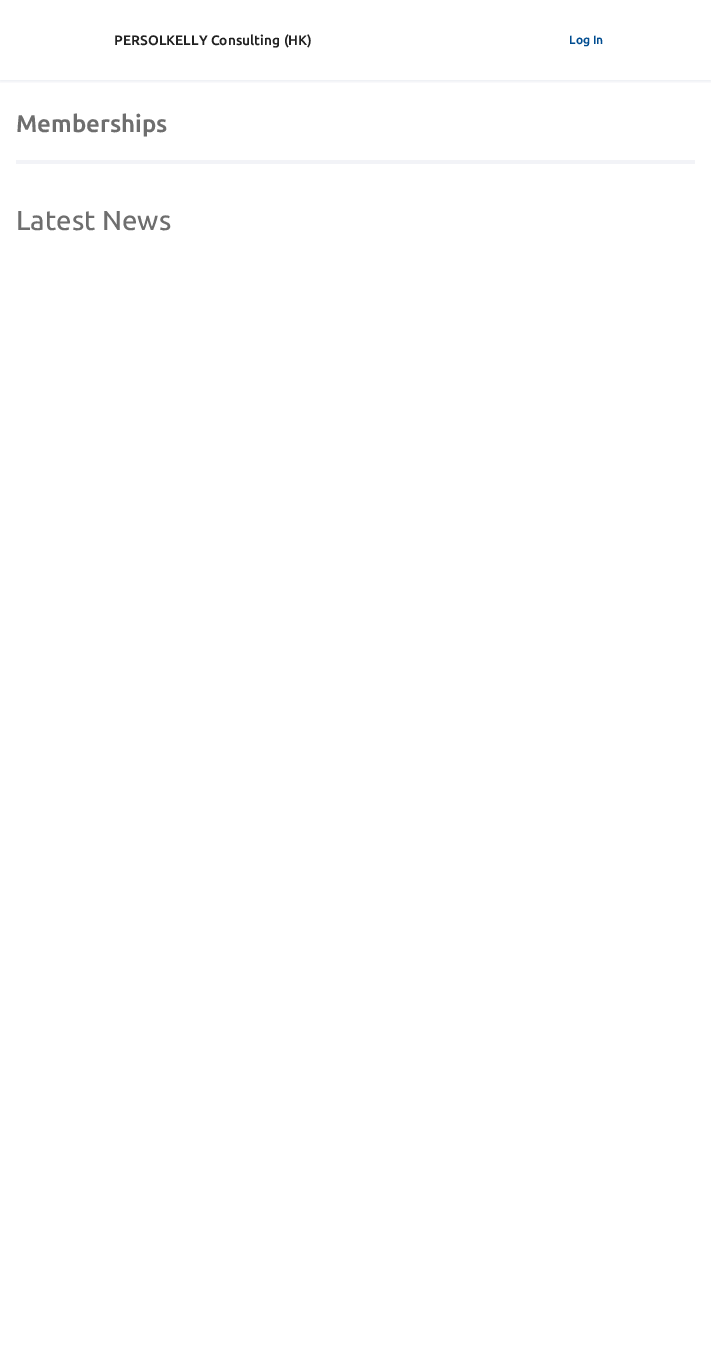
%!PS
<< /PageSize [711 1369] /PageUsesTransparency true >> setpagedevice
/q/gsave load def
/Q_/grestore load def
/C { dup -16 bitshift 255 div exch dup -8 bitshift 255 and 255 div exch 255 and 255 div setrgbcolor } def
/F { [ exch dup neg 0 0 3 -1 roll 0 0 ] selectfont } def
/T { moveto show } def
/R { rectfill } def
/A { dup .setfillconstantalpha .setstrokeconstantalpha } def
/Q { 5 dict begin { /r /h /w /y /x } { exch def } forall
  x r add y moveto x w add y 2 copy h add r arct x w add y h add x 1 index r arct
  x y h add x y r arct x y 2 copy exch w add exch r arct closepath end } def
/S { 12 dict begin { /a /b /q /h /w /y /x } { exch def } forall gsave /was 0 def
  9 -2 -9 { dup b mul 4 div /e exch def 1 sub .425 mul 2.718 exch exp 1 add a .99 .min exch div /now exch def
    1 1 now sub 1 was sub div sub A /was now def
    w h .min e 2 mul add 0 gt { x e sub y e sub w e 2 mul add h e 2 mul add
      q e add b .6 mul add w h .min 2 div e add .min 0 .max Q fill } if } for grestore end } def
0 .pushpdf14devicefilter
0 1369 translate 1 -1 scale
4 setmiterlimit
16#FFFFFF C
0 0 711 1369 R
q
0 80 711 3 rectclip
16#001C6C C
0 1 711 80 0 2 .1 S
Q_
/Ubuntu-Bold 13.75 F
16#212121 C
(PERSOLKELLY Consulting \(HK\)) 114 45 T
/Ubuntu-Bold 12 F
16#004C90 C
(Log In) 569 44 T
/Ubuntu-Bold 24 F
16#6E6E6E C
(Memberships) 16 132 T
16#F2F3F7 C
16 160 679 4 R
/Ubuntu-Medium 27.5 F
16#6E6E6E C
(Latest News) 16 230 T
.poppdf14devicefilter showpage
